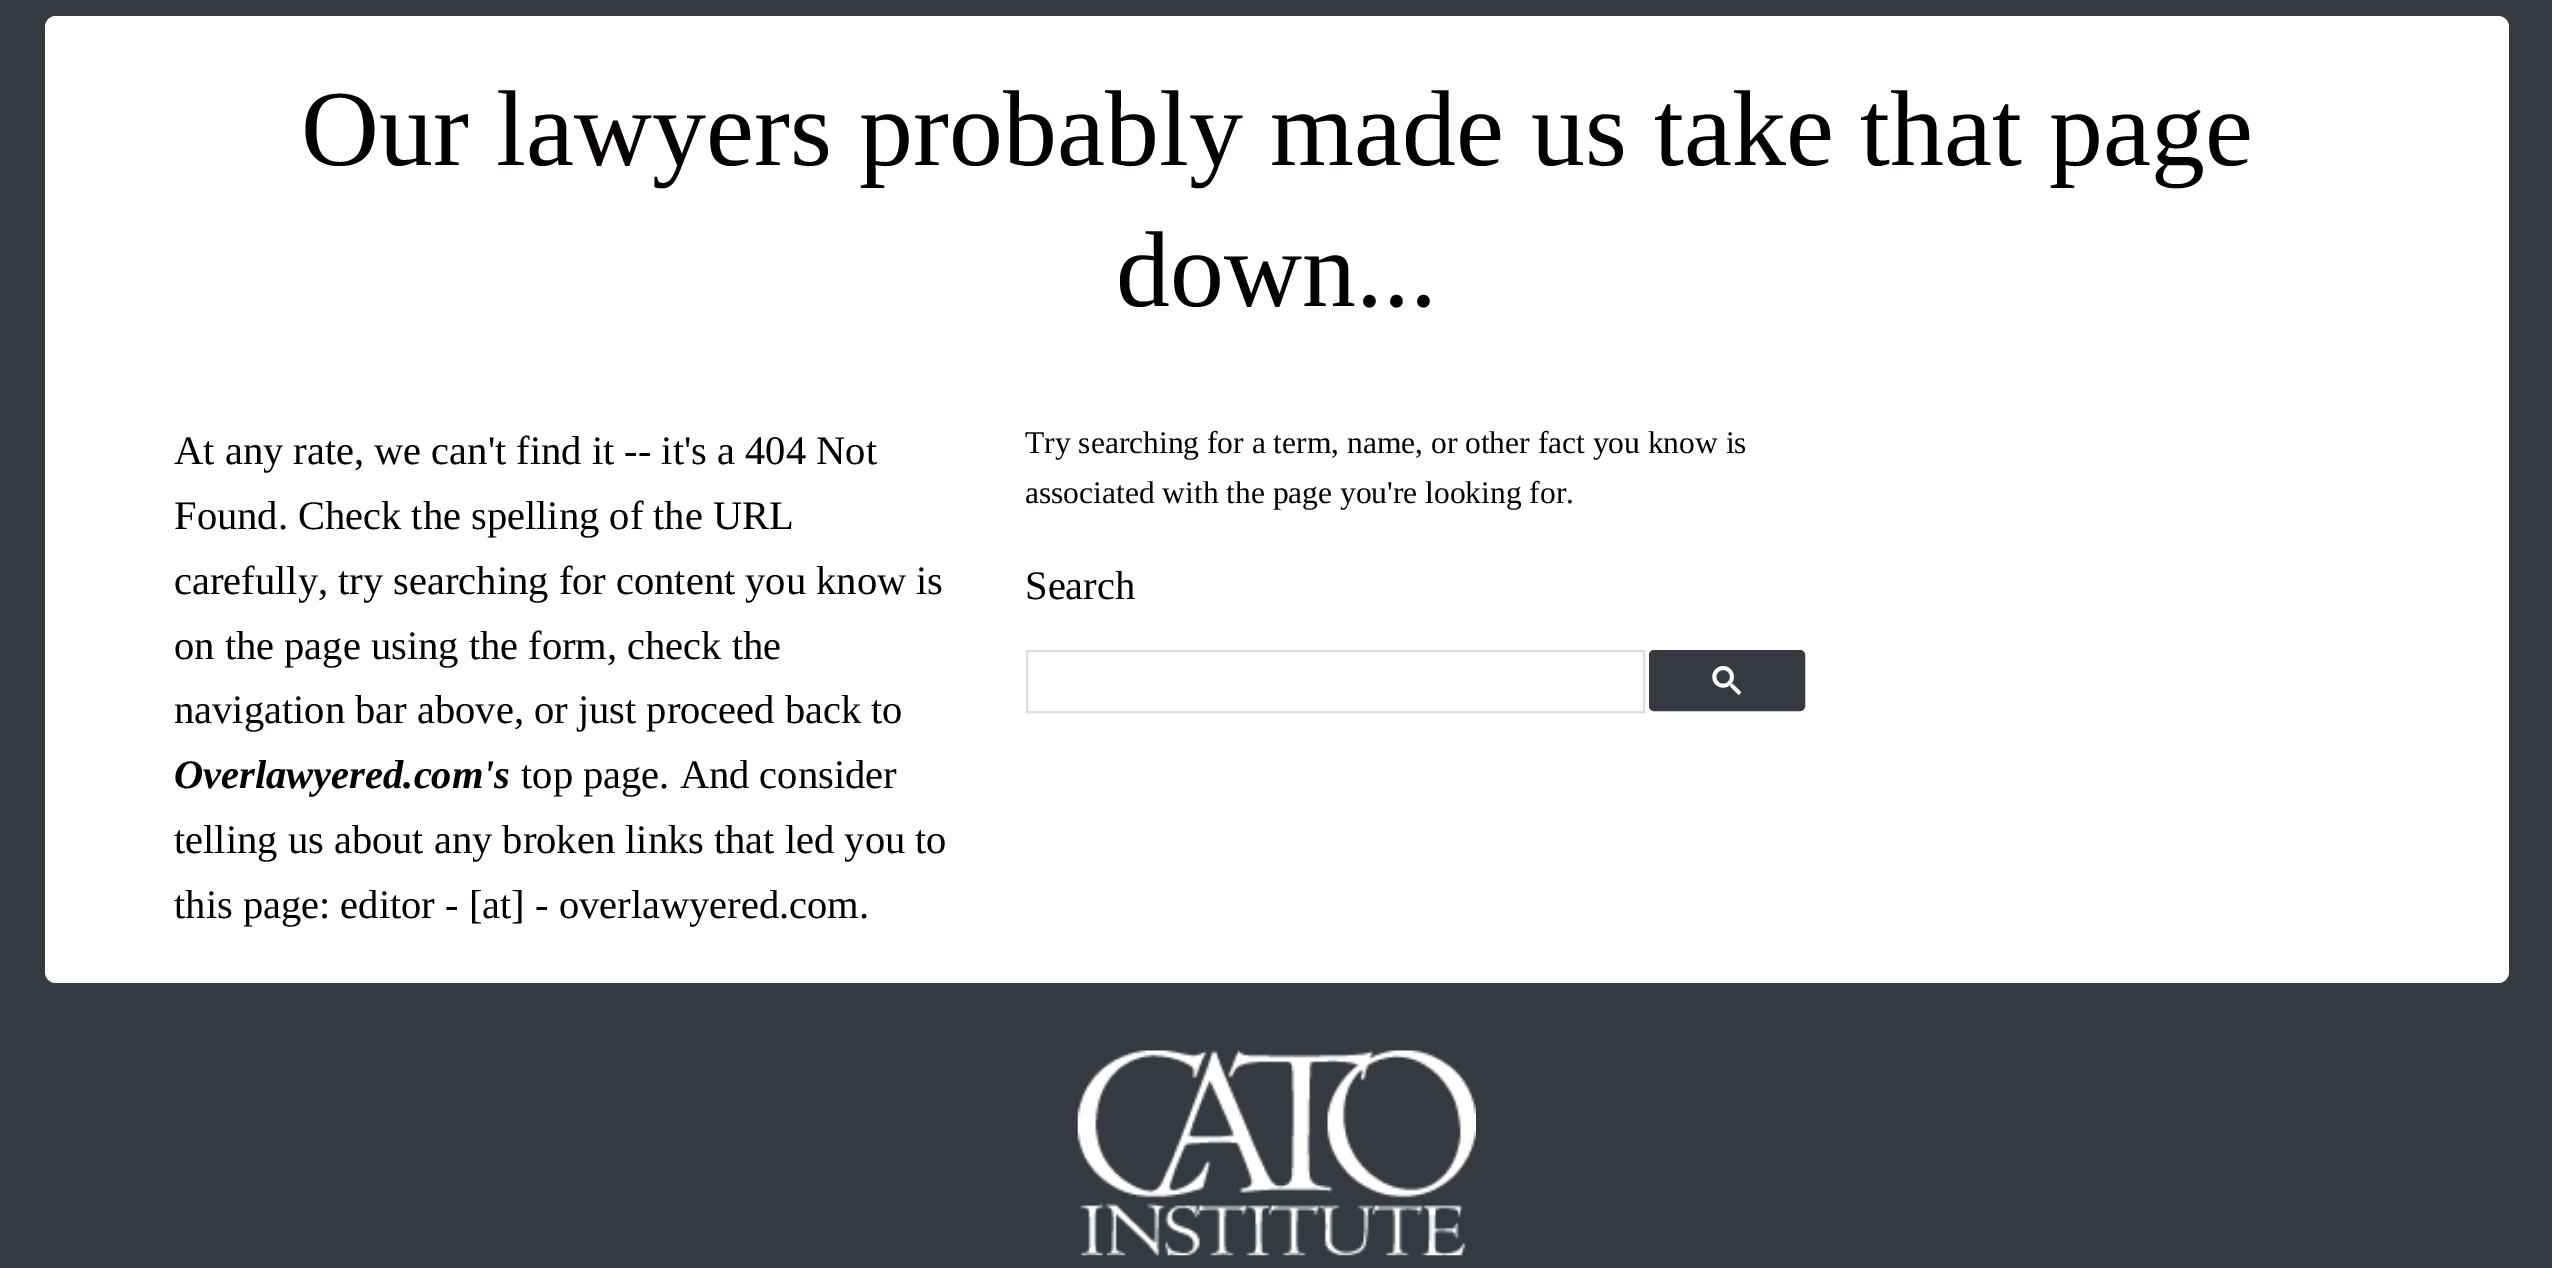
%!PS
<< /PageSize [2552 1268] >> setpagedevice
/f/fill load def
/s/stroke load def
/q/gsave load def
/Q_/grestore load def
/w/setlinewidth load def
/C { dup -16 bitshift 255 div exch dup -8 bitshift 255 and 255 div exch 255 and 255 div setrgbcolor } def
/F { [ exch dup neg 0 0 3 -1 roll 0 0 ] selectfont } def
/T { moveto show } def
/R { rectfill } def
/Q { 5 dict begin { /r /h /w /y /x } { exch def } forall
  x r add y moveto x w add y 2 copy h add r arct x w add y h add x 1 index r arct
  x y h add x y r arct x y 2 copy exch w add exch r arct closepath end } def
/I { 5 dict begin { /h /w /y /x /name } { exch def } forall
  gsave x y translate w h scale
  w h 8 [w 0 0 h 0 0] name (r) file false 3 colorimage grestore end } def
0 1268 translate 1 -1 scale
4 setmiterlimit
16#343A40 C
0 0 2552 1268 R
16#FFFFFF C
45 16 2464 967 11 Q f
/LiberationSerif-Regular 108 F
16#050000 C
(Our lawyers probably made us take that page) 301 165 T
(down...) 1116 306 T
/LiberationSerif-Regular 40.5 F
(At any rate, we can't find it -- it's a 404 Not) 174 464 T
(Found. Check the spelling of the URL) 174 529 T
(carefully, try searching for content you know is) 174 594 T
(on the page using the form, check the) 174 659 T
(navigation bar above, or just proceed back to) 174 723 T
/LiberationSerif-BoldItalic 40.5 F
(Overlawyered.com's) 174 788 T
/LiberationSerif-Regular 40.5 F
(top page. And consider) 521 788 T
(telling us about any broken links that led you to) 174 853 T
(this page: editor - [at] - overlawyered.com.) 174 918 T
/LiberationSerif-Regular 31.5 F
(Try searching for a term, name, or other fact you know is) 1025 453 T
(associated with the page you're looking for.) 1025 503 T
/LiberationSerif-Regular 40.5 F
(Search) 1025 599 T
16#DDDDDD C
2 w
1027 651 617 61 rectstroke
16#343A40 C
1650 651 154 59 4 Q q f Q_
s
(1.rgb) 1712 666 30 29 I
(2.rgb) 1077 1050 399 206 I
showpage
